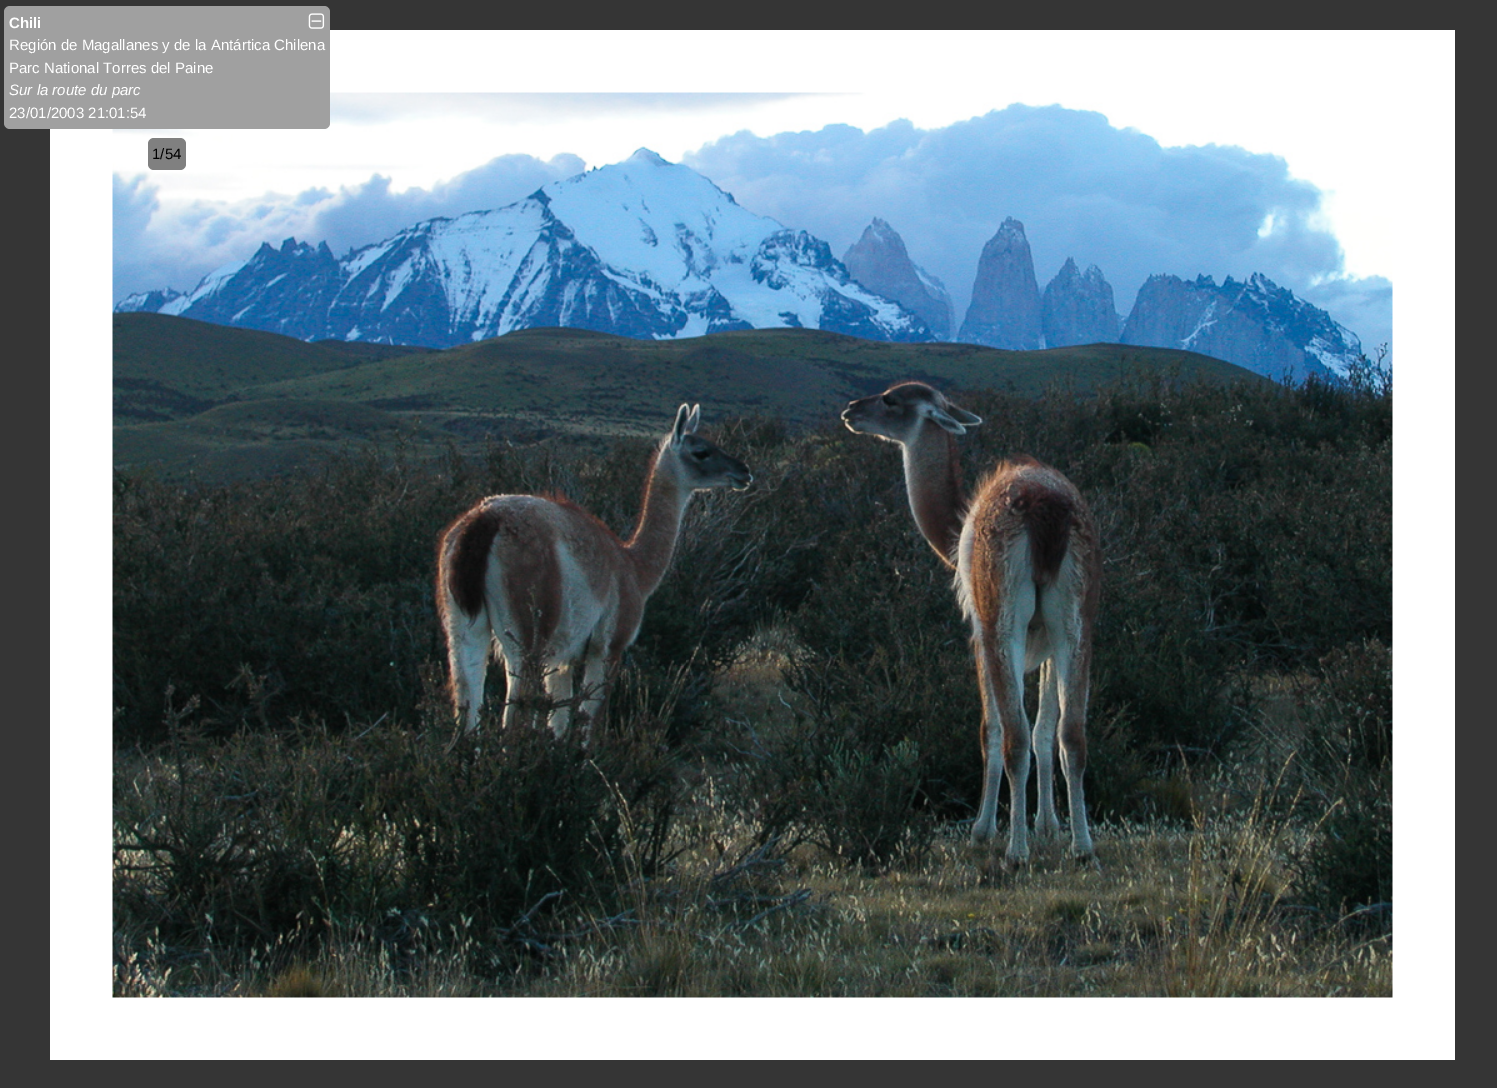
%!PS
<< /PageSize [1497 1088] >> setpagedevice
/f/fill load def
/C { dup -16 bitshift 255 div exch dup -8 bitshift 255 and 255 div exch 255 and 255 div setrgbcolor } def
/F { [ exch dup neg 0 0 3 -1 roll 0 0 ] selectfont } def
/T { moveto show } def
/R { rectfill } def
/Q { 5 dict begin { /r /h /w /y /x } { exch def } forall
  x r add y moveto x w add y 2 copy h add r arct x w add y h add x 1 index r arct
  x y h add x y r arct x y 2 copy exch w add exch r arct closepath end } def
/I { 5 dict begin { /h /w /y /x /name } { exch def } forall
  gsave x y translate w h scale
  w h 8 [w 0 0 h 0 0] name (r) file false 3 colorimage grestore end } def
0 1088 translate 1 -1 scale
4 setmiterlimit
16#353535 C
0 0 1497 1088 R
16#FFFFFF C
50 30 1405 1030 R
(2.rgb) 112 92 1281 906 I
16#A0A0A0 C
4 6 326 123 6 Q f
(1.rgb) 308 13 17 16 I
/LiberationSans-Bold 15 F
16#FFFFFF C
(Chili) 9 28 T
/LiberationSans-Regular 15 F
(Región de Magallanes y de la Antártica Chilena) 9 50 T
(Parc National Torres del Paine) 9 73 T
/LiberationSans-Italic 15 F
(Sur la route du parc) 9 95 T
/LiberationSans-Regular 15 F
(23/01/2003 21:01:54) 9 118 T
16#808080 C
148 138 38 32 6 Q f
16#000000 C
(1/54) 152 159 T
showpage
